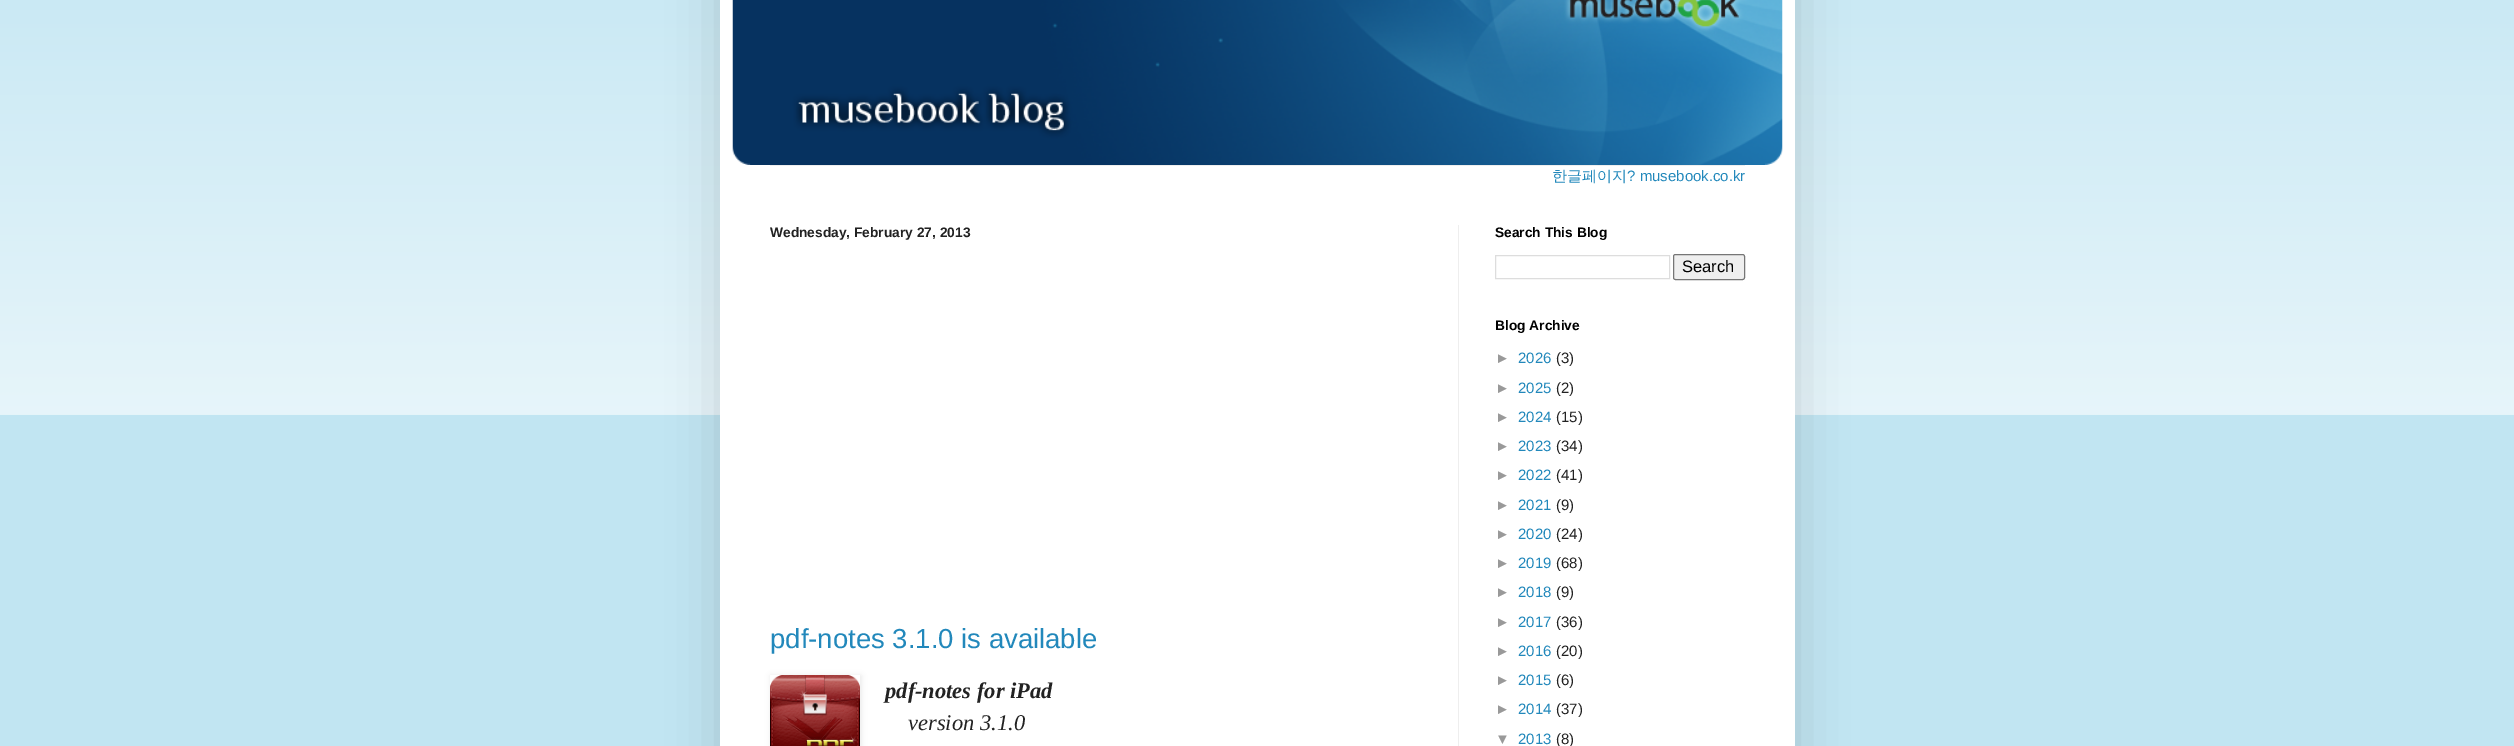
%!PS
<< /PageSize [2514 746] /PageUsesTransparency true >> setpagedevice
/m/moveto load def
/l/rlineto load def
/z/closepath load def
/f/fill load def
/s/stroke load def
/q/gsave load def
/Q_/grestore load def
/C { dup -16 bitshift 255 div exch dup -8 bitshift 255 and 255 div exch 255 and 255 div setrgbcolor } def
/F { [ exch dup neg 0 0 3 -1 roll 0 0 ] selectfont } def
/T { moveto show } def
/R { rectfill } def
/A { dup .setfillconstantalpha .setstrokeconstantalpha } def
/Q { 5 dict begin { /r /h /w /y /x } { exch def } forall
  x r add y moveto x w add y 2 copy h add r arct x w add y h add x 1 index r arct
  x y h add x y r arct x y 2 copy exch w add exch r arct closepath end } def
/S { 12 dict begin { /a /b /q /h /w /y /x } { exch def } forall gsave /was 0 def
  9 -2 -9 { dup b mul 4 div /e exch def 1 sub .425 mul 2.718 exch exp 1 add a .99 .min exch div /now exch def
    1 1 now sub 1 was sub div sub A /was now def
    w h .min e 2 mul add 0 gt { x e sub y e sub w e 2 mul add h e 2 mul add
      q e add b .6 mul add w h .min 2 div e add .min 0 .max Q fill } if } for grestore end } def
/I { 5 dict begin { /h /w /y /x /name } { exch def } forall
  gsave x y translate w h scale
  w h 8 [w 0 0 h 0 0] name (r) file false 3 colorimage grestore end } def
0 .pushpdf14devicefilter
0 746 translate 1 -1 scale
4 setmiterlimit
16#C1E5F2 C
0 0 2514 746 R
(1.rgb) 0 0 2514 415 I
16#000000 C
720 -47 1075 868 0 25 .15 S
16#FFFFFF C
720 0 1075 746 R
(2.rgb) 732 0 1051 165 I
16#EEEEEE C
770 165 975 1 R
/WenQuanYiZenHei-Medium 15 F
16#2288BB C
(한글페이지) 1552 181 T
/LiberationSans-Regular 15 F
(? musebook.co.kr) 1627 181 T
16#EEEEEE C
1458 225 1 521 R
/LiberationSans-Bold 13.75 F
16#222222 C
(Wednesday, February 27, 2013) 770 237 T
/LiberationSans-Regular 27.5 F
16#2288BB C
(pdf-notes 3.1.0 is available) 770 648 T
q
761 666 m 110 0 l 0 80 l -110 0 l z 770 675 m 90 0 l 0 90 l -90 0 l z eoclip newpath
16#000000 C
771 676 90 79 0 3 .1 S
Q_
(3.rgb) 770 675 90 71 I
/LiberationSerif-BoldItalic 22.5 F
16#222222 C
(pdf-notes for iPad) 885 698 T
/LiberationSerif-Italic 22.5 F
(version 3.1.0) 908 730 T
/LiberationSans-Bold 13.75 F
16#000000 C
(Search This Blog) 1495 237 T
16#DDDDDD C
1495.5 255.5 174 23 rectstroke
16#EFEFEF C
1673.5 254.5 71 25 2 Q q f Q_
16#767676 C
s
/LiberationSans-Regular 16.5 F
16#000000 C
(Search) 1682 272 T
/LiberationSans-Bold 13.75 F
(Blog Archive) 1495 330 T
/LiberationSans-Regular 15 F
16#999999 C
(►) 1495 363 T
16#2288BB C
(2026) 1518 363 T
16#222222 C
(\(3\)) 1556 363 T
16#999999 C
(►) 1495 393 T
16#2288BB C
(2025) 1518 393 T
16#222222 C
(\(2\)) 1556 393 T
16#999999 C
(►) 1495 422 T
16#2288BB C
(2024) 1518 422 T
16#222222 C
(\(15\)) 1556 422 T
16#999999 C
(►) 1495 451 T
16#2288BB C
(2023) 1518 451 T
16#222222 C
(\(34\)) 1556 451 T
16#999999 C
(►) 1495 480 T
16#2288BB C
(2022) 1518 480 T
16#222222 C
(\(41\)) 1556 480 T
16#999999 C
(►) 1495 510 T
16#2288BB C
(2021) 1518 510 T
16#222222 C
(\(9\)) 1556 510 T
16#999999 C
(►) 1495 539 T
16#2288BB C
(2020) 1518 539 T
16#222222 C
(\(24\)) 1556 539 T
16#999999 C
(►) 1495 568 T
16#2288BB C
(2019) 1518 568 T
16#222222 C
(\(68\)) 1556 568 T
16#999999 C
(►) 1495 597 T
16#2288BB C
(2018) 1518 597 T
16#222222 C
(\(9\)) 1556 597 T
16#999999 C
(►) 1495 627 T
16#2288BB C
(2017) 1518 627 T
16#222222 C
(\(36\)) 1556 627 T
16#999999 C
(►) 1495 656 T
16#2288BB C
(2016) 1518 656 T
16#222222 C
(\(20\)) 1556 656 T
16#999999 C
(►) 1495 685 T
16#2288BB C
(2015) 1518 685 T
16#222222 C
(\(6\)) 1556 685 T
16#999999 C
(►) 1495 714 T
16#2288BB C
(2014) 1518 714 T
16#222222 C
(\(37\)) 1556 714 T
16#999999 C
(▼) 1495 744 T
16#2288BB C
(2013) 1518 744 T
16#222222 C
(\(8\)) 1556 744 T
.poppdf14devicefilter showpage
